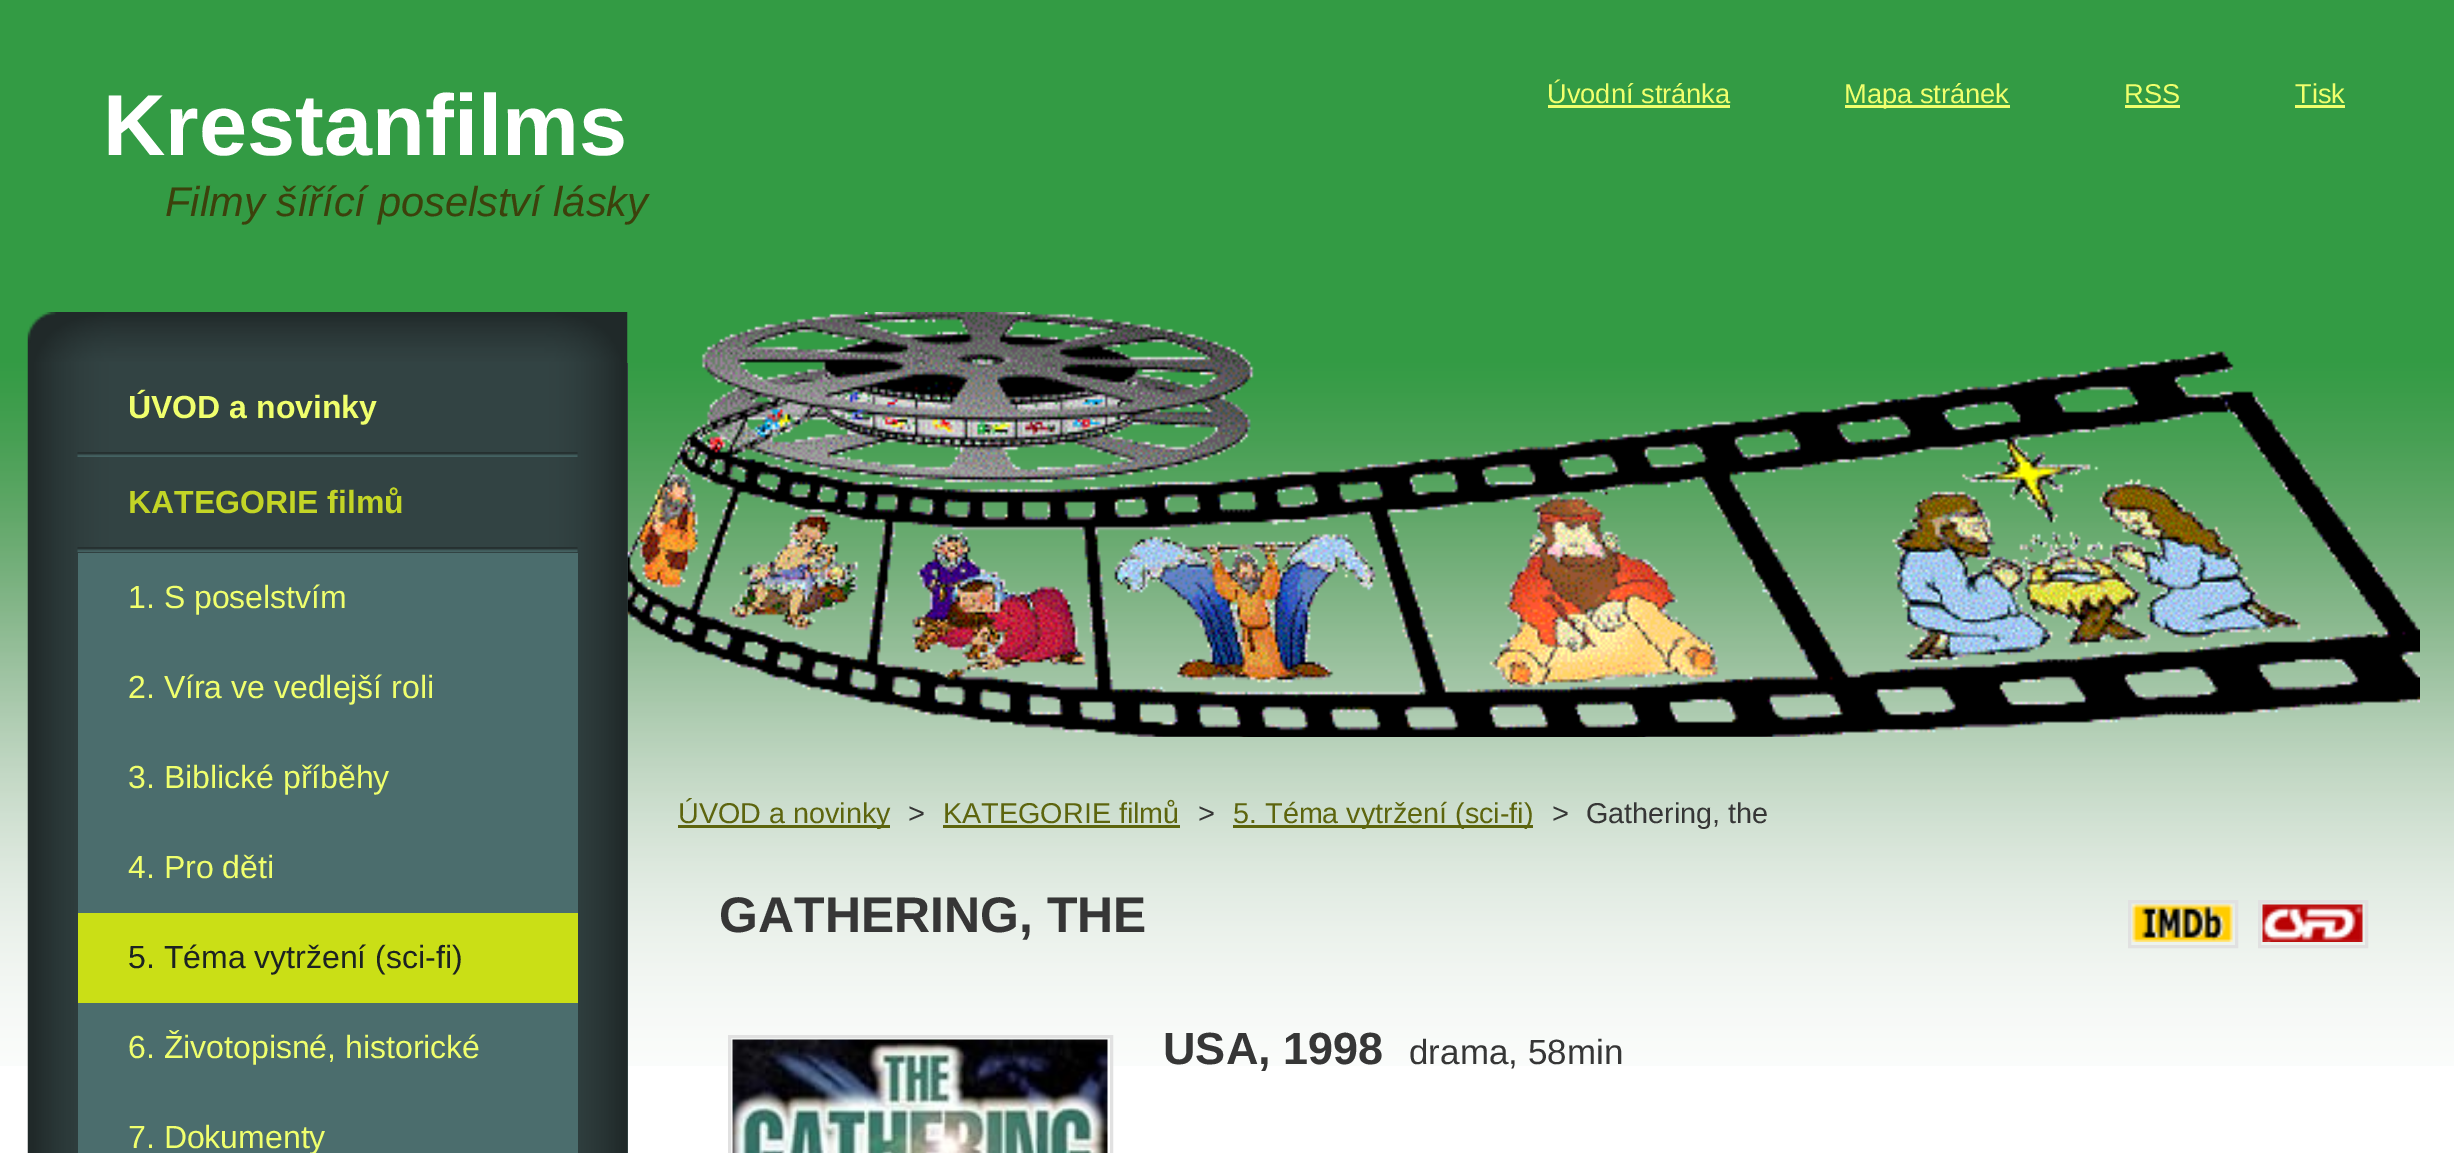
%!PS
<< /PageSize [2454 1153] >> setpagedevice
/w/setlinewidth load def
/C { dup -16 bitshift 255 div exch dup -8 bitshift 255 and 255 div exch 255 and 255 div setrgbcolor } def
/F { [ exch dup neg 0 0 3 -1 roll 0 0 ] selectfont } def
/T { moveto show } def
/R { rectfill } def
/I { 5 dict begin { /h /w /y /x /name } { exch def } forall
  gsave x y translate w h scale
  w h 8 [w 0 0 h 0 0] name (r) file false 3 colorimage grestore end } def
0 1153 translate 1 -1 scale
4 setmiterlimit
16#FFFFFF C
0 0 2454 1153 R
(1.rgb) 0 0 2454 1066 I
/LiberationSans-Bold 86.5 F
(Krestanfilms) 103 155 T
/LiberationSans-Italic 41.6 F
16#3C410C C
(Filmy šířící poselství lásky) 165 216 T
/LiberationSans-Regular 27.25 F
16#F0FF6D C
(Úvodní stránka) 1547 103 T
1548 105 182 3 R
1845 105 165 3 R
(Mapa stránek) 1844 103 T
(RSS) 2124 103 T
2125 105 55 3 R
(Tisk) 2295 103 T
2295 105 50 3 R
(2.rgb) 27 312 601 50 I
16#364848 C
627 363 1 790 R
(3.rgb) 27 362 601 791 I
(4.rgb) 77 452 501 5 I
/LiberationSans-Bold 32 F
16#F0FF6D C
(ÚVOD a novinky) 128 418 T
16#C3D526 C
(KATEGORIE filmů) 128 513 T
(4.rgb) 77 547 501 5 I
16#4B6D6D C
78 553 500 360 R
/LiberationSans-Regular 32 F
16#F0FF6D C
(1. S poselstvím) 128 608 T
(2. Víra ve vedlejší roli) 128 698 T
(3. Biblické příběhy) 128 788 T
(4. Pro děti) 128 878 T
16#CADF16 C
78 913 500 90 R
16#1C2222 C
(5. Téma vytržení \(sci-fi\)) 128 968 T
16#4B6D6D C
78 1003 500 150 R
16#F0FF6D C
(6. Životopisné, historické) 128 1058 T
(7. Dokumenty) 128 1148 T
(5.rgb) 627 312 1793 425 I
16#5D650E C
678 825 212 3 R
/LiberationSans-Regular 28.75 F
(ÚVOD a novinky) 678 823 T
16#363636 C
(>) 908 823 T
16#5D650E C
(KATEGORIE filmů) 943 823 T
943 825 237 3 R
16#363636 C
(>) 1198 823 T
16#5D650E C
1233 825 300 3 R
(5. Téma vytržení \(sci-fi\)) 1233 823 T
16#363636 C
(>) 1552 823 T
(Gathering, the) 1586 823 T
/LiberationSans-Bold 50 F
(GATHERING, THE) 719 932 T
16#E1E1E1 C
3 w
2129.5 901.5 107 45 rectstroke
(6.rgb) 2132 904 101 38 I
2259.5 901.5 107 45 rectstroke
(7.rgb) 2262 904 101 38 I
729.5 1036.5 382 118 rectstroke
(8.rgb) 732 1039 376 114 I
/LiberationSans-Bold 45 F
16#363636 C
(USA, 1998) 1163 1064 T
/LiberationSans-Regular 35 F
(drama, 58min) 1409 1064 T
showpage
